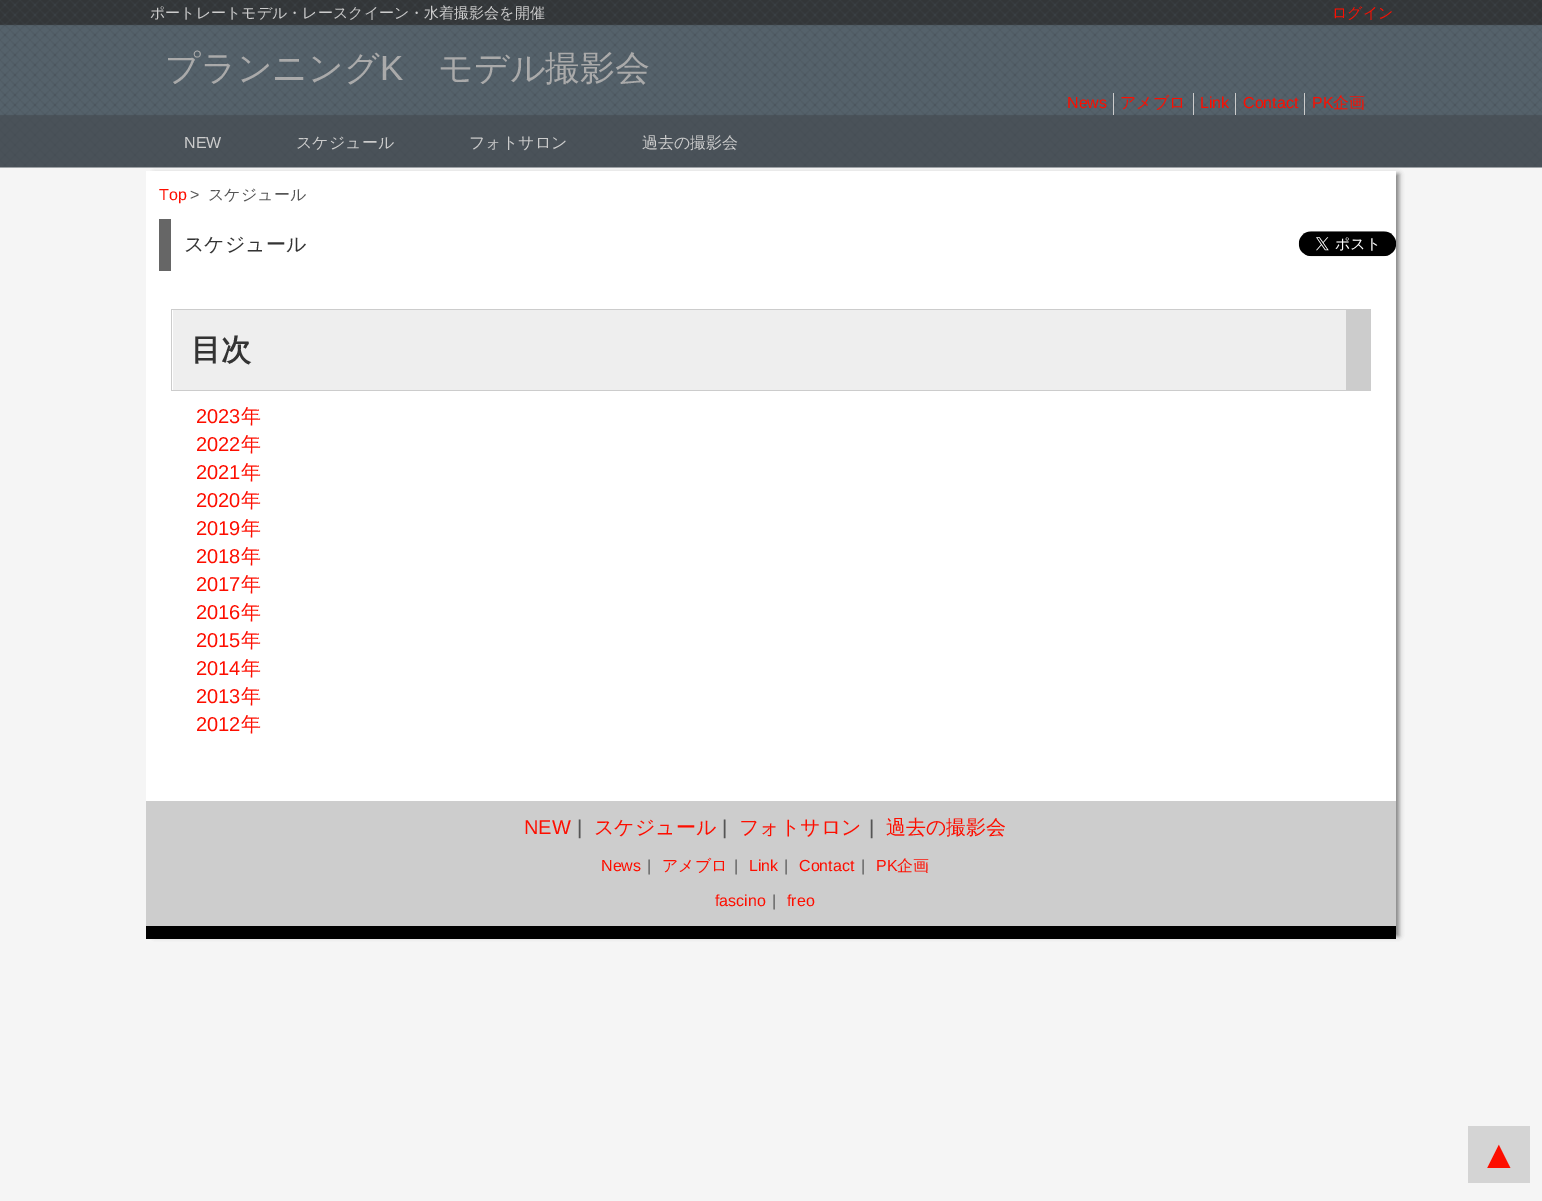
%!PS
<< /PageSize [1542 1201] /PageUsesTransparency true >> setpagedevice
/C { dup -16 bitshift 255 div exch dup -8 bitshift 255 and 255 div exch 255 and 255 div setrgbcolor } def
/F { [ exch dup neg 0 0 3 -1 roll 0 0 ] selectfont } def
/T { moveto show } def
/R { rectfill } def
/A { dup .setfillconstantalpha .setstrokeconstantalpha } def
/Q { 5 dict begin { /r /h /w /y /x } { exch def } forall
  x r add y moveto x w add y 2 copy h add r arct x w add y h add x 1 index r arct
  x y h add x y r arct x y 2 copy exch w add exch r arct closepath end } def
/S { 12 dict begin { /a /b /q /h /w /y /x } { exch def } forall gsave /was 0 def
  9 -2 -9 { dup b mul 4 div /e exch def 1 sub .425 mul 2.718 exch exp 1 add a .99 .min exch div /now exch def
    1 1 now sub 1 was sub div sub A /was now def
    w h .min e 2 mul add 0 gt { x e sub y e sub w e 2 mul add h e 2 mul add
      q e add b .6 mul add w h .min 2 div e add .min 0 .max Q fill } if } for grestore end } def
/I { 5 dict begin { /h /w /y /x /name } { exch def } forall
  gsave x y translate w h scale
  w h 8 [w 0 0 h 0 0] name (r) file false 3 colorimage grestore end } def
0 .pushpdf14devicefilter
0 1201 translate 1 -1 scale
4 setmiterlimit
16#F5F5F5 C
0 0 1542 1201 R
(1.rgb) 0 0 1542 168 I
/WenQuanYiZenHei-Medium 15 F
16#CCCCCC C
(ポートレートモデル・レースクイーン・水着撮影会を開催) 150 18 T
16#FD0E00 C
(ログイン) 1332 18 T
/WenQuanYiZenHei-Medium 35 F
16#AAAAAA C
(プランニング) 165 80 T
/LiberationSans-Regular 35 F
(K) 380 80 T
/WenQuanYiZenHei-Medium 35 F
(モデル撮影会) 438 80 T
16#CCCCCC C
1113 93 1 22 R
/LiberationSans-Regular 16 F
16#FD0E00 C
(News) 1067 108 T
16#CCCCCC C
1193 93 1 22 R
/WenQuanYiZenHei-Medium 16 F
16#FD0E00 C
(アメブロ) 1120 108 T
16#CCCCCC C
1235 93 1 22 R
/LiberationSans-Regular 16 F
16#FD0E00 C
(Link) 1200 108 T
16#CCCCCC C
1304 93 1 22 R
16#FD0E00 C
(Contact) 1243 108 T
(PK) 1312 108 T
/WenQuanYiZenHei-Medium 16 F
(企画) 1333 108 T
/LiberationSans-Regular 16 F
16#CCCCCC C
(NEW) 184 148 T
/WenQuanYiZenHei-Medium 16 F
(スケジュール) 296 148 T
(フォトサロン) 469 148 T
(過去の撮影会) 642 148 T
16#808080 C
154 174 1245 762 0 2.5 1 S
16#FFFFFF C
146 171 1250 630 R
/LiberationSans-Regular 16 F
16#FD0E00 C
(Top) 159 200 T
16#555555 C
(>) 190 200 T
/WenQuanYiZenHei-Medium 16 F
(スケジュール) 208 200 T
16#666666 C
159 219 12 52 R
/WenQuanYiZenHei-Medium 20 F
16#333333 C
(スケジュール) 184 251 T
16#EEEEEE C
173 310 1173 80 R
16#CCCCCC C
171 309 1175 1 R
1346 309 25 81 R
171 390 1200 1 R
171 309 1 82 R
/WenQuanYiZenHei-Bold 30 F
16#333333 C
(目次) 191 360 T
/LiberationSans-Regular 20 F
16#FD0E00 C
(2023) 196 423 T
/WenQuanYiZenHei-Medium 20 F
(年) 241 423 T
/LiberationSans-Regular 20 F
(2022) 196 451 T
/WenQuanYiZenHei-Medium 20 F
(年) 241 451 T
/LiberationSans-Regular 20 F
(2021) 196 479 T
/WenQuanYiZenHei-Medium 20 F
(年) 241 479 T
/LiberationSans-Regular 20 F
(2020) 196 507 T
/WenQuanYiZenHei-Medium 20 F
(年) 241 507 T
/LiberationSans-Regular 20 F
(2019) 196 535 T
/WenQuanYiZenHei-Medium 20 F
(年) 241 535 T
/LiberationSans-Regular 20 F
(2018) 196 563 T
/WenQuanYiZenHei-Medium 20 F
(年) 241 563 T
/LiberationSans-Regular 20 F
(2017) 196 591 T
/WenQuanYiZenHei-Medium 20 F
(年) 241 591 T
/LiberationSans-Regular 20 F
(2016) 196 619 T
/WenQuanYiZenHei-Medium 20 F
(年) 241 619 T
/LiberationSans-Regular 20 F
(2015) 196 647 T
/WenQuanYiZenHei-Medium 20 F
(年) 241 647 T
/LiberationSans-Regular 20 F
(2014) 196 675 T
/WenQuanYiZenHei-Medium 20 F
(年) 241 675 T
/LiberationSans-Regular 20 F
(2013) 196 703 T
/WenQuanYiZenHei-Medium 20 F
(年) 241 703 T
/LiberationSans-Regular 20 F
(2012) 196 731 T
/WenQuanYiZenHei-Medium 20 F
(年) 241 731 T
(2.rgb) 1298 231 98 26 I
16#CDCDCD C
146 801 1250 125 R
16#000000 C
146 926 1250 13 R
/LiberationSans-Regular 20 F
16#FD0E00 C
(NEW) 524 834 T
16#555555 C
(|) 577 834 T
/WenQuanYiZenHei-Medium 20 F
16#FD0E00 C
(スケジュール) 594 834 T
/LiberationSans-Regular 20 F
16#555555 C
(|) 722 834 T
/WenQuanYiZenHei-Medium 20 F
16#FD0E00 C
(フォトサロン) 739 834 T
/LiberationSans-Regular 20 F
16#555555 C
(|) 869 834 T
/WenQuanYiZenHei-Medium 20 F
16#FD0E00 C
(過去の撮影会) 886 834 T
/LiberationSans-Regular 16 F
(News) 601 871 T
16#555555 C
(|) 647 871 T
/WenQuanYiZenHei-Medium 16 F
16#FD0E00 C
(アメブロ) 662 871 T
/LiberationSans-Regular 16 F
16#555555 C
(|) 734 871 T
16#FD0E00 C
(Link) 749 871 T
16#555555 C
(|) 784 871 T
16#FD0E00 C
(Contact) 799 871 T
16#555555 C
(|) 861 871 T
16#FD0E00 C
(PK) 876 871 T
/WenQuanYiZenHei-Medium 16 F
(企画) 897 871 T
/LiberationSans-Regular 16 F
(fascino) 715 906 T
16#555555 C
(|) 772 906 T
16#FD0E00 C
(freo) 787 906 T
16#D4D4D4 C
1468 1126 62 57 R
/LiberationSans-Regular 40 F
16#FD0E00 C
(▲) 1479 1168 T
.poppdf14devicefilter showpage
